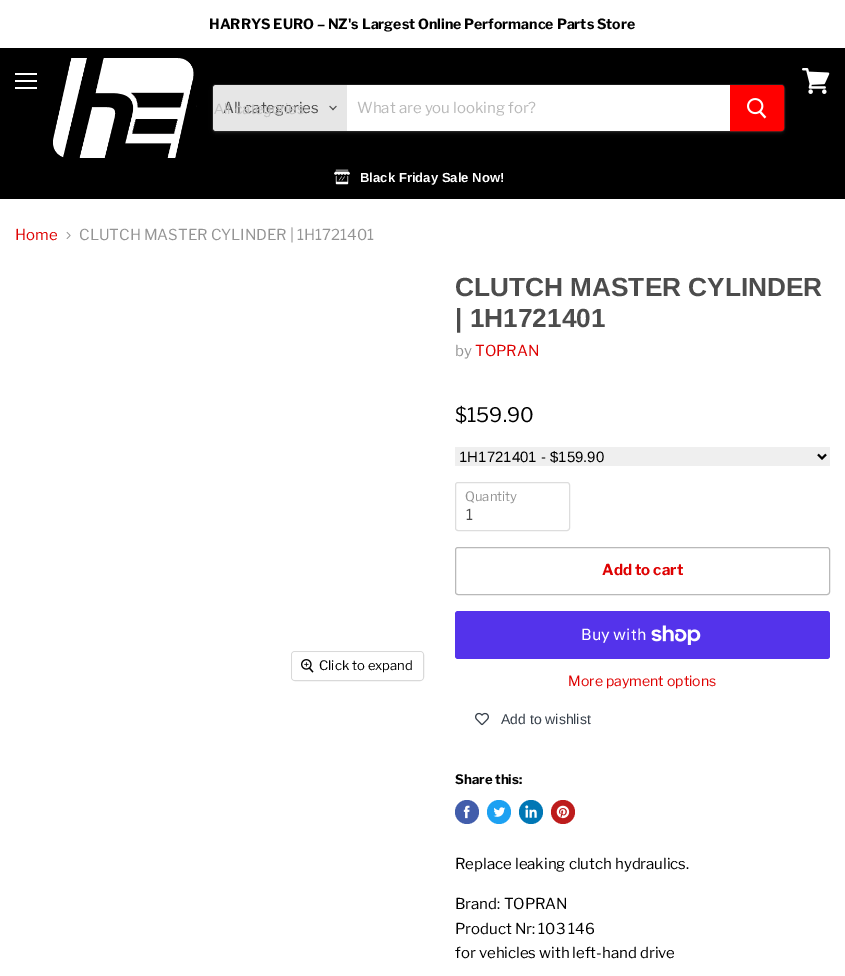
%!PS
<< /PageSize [845 976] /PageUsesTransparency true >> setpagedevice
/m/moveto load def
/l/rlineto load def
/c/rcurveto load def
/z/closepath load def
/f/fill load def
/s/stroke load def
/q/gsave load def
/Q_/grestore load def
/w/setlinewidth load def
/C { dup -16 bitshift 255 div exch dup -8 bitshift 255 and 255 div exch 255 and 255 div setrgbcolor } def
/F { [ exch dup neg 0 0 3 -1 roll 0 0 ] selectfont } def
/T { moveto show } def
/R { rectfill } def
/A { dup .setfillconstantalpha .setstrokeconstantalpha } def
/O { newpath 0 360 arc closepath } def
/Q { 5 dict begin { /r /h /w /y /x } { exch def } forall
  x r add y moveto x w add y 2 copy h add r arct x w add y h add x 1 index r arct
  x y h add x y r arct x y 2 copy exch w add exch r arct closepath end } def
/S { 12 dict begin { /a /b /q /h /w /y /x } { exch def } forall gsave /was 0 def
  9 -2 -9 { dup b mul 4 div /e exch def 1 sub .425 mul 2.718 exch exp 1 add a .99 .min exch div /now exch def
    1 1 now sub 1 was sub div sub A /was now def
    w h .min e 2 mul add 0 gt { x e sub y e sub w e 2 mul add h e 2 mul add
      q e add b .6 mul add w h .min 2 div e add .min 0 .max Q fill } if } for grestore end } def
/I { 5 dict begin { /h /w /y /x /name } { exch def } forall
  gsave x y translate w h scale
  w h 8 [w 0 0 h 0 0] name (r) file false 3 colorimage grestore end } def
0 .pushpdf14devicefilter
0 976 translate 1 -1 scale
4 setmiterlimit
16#FFFFFF C
0 0 845 976 R
/LibreFranklin-Bold 14.05 F
16#000000 C
(HARRYS EURO – NZ's Largest Online Performance Parts Store) 209 29 T
0 48 845 151 R
16#FFFFFF C
15 73 22 2 R
15 80 22 2 R
15 87 22 2 R
(1.rgb) 802 68 28 26 I
(2.rgb) 53 58 144 100 I
16#808080 C
212 86 573 48 4 1.5 .11 S
0.2 A
212.5 84.5 572 47 3.5 Q s
1 A
16#E6E6E6 C
216 85 m 131 0 l 0 46 l -131 0 l -1.5 0 -3 -1.5 -3 -3 c 0 -40 l 0 -1.5 1.5 -3 3 -3 c z f
/LibreFranklin-Regular 15 F
16#4C4C4C C
(All categories) 223 113 T
/LiberationSans-Regular 15 F
16#C4C4C4 C
(All categories) 214 114 T
(3.rgb) 329 105 8 6 I
16#FFFFFF C
347 85 383 46 R
/LibreFranklin-Regular 15 F
16#B8B8B8 C
(What are you looking for?) 357 113 T
16#FF0000 C
730.5 85.5 m 50.5 0 l 1.5 0 2.5 1 2.5 2.5 c 0 40 l 0 1.5 -1 2.5 -2.5 2.5 c -50.5 0 l z q f Q_
s
(4.rgb) 747 98 20 21 I
(5.rgb) 334 169 16 16 I
/Arimo-Bold 13.1 F
16#FFFFFF C
(Black Friday Sale Now!) 360 182 T
/LibreFranklin-Regular 15 F
16#DE0101 C
(Home) 15 240 T
(6.rgb) 66 231 5 8 I
16#949494 C
(CLUTCH MASTER CYLINDER | 1H1721401) 79 240 T
16#D9D9D9 C
291.5 651.5 132 29 3.5 Q s
0.9 A
16#FFFFFF C
292 652 131 28 3 Q f
1 A
(7.rgb) 301 659 13 14 I
/LibreFranklin-Regular 13.1 F
16#000000 C
(Click to expand) 319 670 T
/Arimo-Bold 26.25 F
16#4C4C4C C
(CLUTCH MASTER CYLINDER) 455 296 T
(| 1H1721401) 455 327 T
/LibreFranklin-Regular 15 F
16#949494 C
(by) 455 356 T
16#DE0101 C
(TOPRAN) 475 356 T
/LibreFranklin-Regular 20 F
16#000000 C
($159.90) 455 422 T
16#EFEFEF C
455 447 375 19 R
16#000000 C
2 w
818 454.5 m 4 4 l 4 -4 l s
/LiberationSans-Regular 15 F
(1H1721401 - $159.90) 459 462 T
16#DDDDDD C
1 w
455.5 482.5 114 48 2.5 Q s
/LibreFranklin-Regular 13 F
16#949494 C
(Quantity) 465 501 T
/LibreFranklin-Regular 15 F
16#4C4C4C C
(1) 466 520 T
16#B9B9B9 C
455.5 547.5 374 47 2.5 Q s
/LibreFranklin-Bold 15 F
16#DE0101 C
(Add to cart) 602 575 T
16#5433EB C
455 611 375 48 3 Q f
/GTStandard-Regular 16 F
16#FFFFFF C
(Buy with) 581 640 T
(8.rgb) 651 625 50 20 I
/LibreFranklin-Regular 14.05 F
16#DE0101 C
(More payment options) 568 686 T
(9.rgb) 475 712 14 14 I
/LiberationSans-Regular 14 F
16#363F4A C
(Add to wishlist) 501 724 T
/LibreFranklin-Bold 13.1 F
16#000000 C
(Share this:) 455 784 T
16#425DAB C
467 812 12 O f
(10.rgb) 463 805 7 14 I
16#1DA1F2 C
499 812 12 O f
(11.rgb) 493 807 13 10 I
16#0077B5 C
531 812 12 O f
(12.rgb) 525 805 12 13 I
16#BD1C1C C
563 812 12 O f
(13.rgb) 556 805 14 14 I
/LibreFranklin-Regular 15 F
16#000000 C
(Replace leaking clutch hydraulics.) 455 869 T
(Brand: TOPRAN) 455 909 T
(Product Nr: 103 146) 455 934 T
(for vehicles with left-hand drive) 455 958 T
.poppdf14devicefilter showpage
